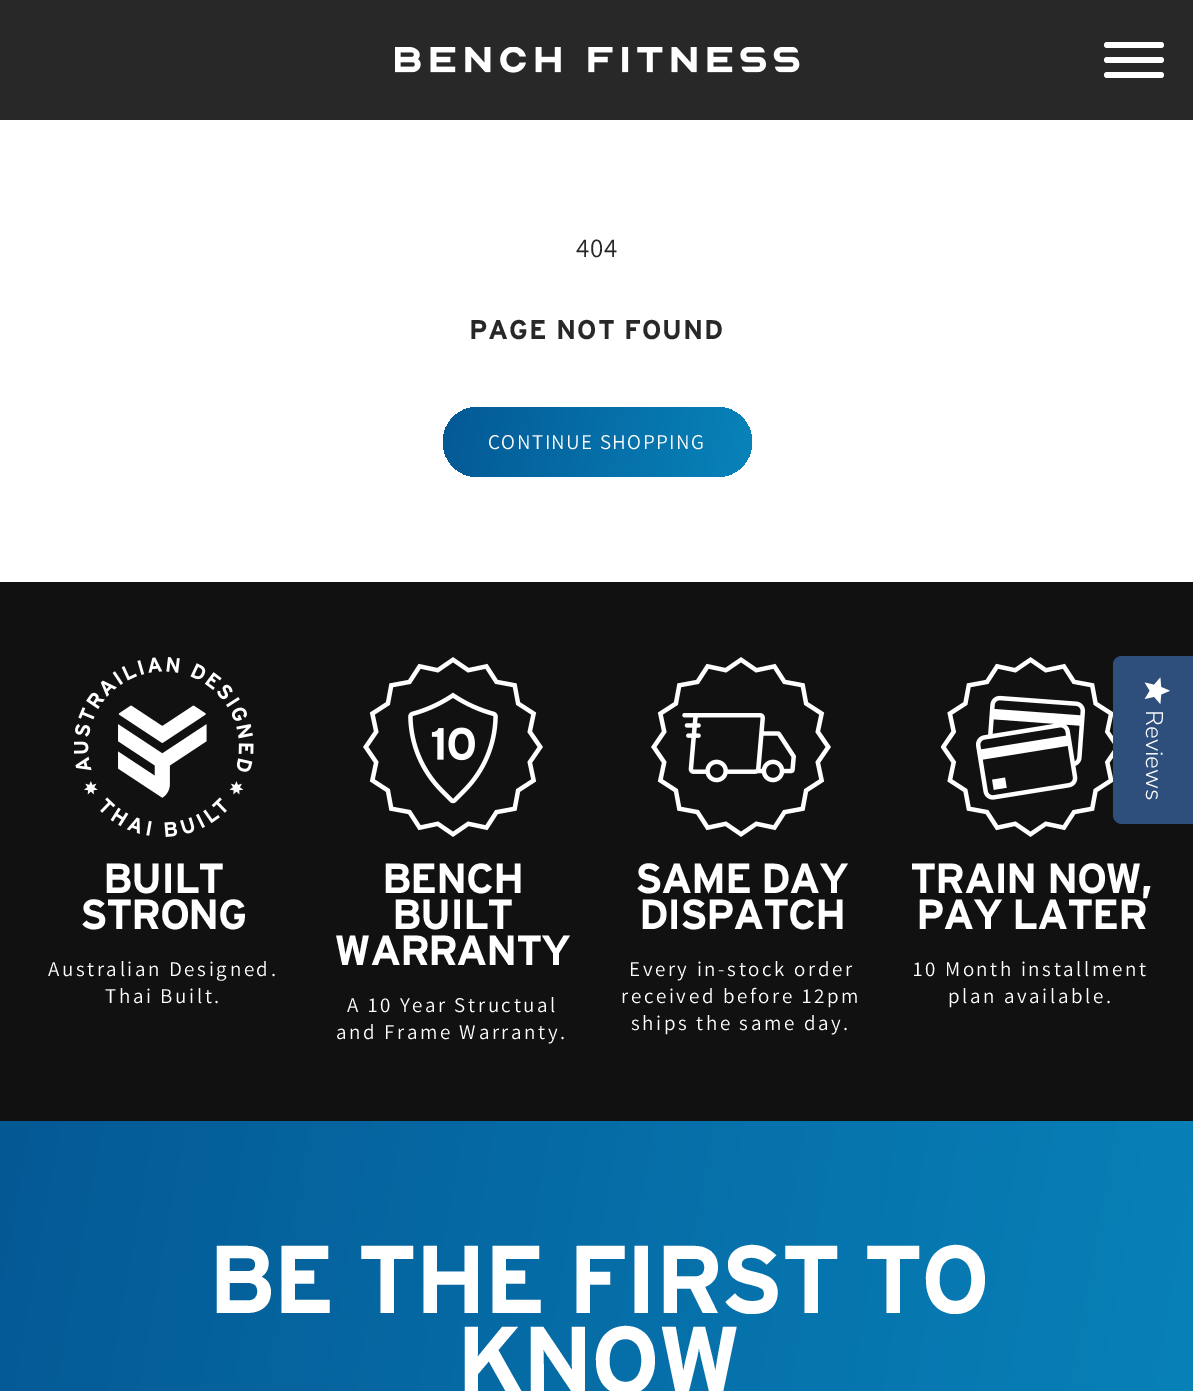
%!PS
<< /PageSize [1193 1391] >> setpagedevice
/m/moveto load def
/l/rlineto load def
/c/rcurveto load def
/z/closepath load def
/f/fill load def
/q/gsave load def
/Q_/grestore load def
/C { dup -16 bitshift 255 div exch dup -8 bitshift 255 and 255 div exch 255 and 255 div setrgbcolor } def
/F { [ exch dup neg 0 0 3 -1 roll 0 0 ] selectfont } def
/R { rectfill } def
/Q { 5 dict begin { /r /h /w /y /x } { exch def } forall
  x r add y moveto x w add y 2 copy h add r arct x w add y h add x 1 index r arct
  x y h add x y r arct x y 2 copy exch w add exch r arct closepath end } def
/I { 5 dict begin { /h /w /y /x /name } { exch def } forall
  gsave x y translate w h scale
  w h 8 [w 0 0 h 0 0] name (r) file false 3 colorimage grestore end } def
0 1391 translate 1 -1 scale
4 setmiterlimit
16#FFFFFF C
0 0 1193 1391 R
16#282828 C
0 0 1193 120 R
(1.rgb) 395 47 405 26 I
16#FFFFFF C
1104 57 60 6 3 Q f
1104 42 60 6 3 Q f
1104 72 60 6 3 Q f
/Assistant-Regular 27 F
16#282828 C
576 257 m .9 0 (404) ashow
/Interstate-Bold 27 F
469 339 m .9 0 (PAGE NOT FOUND) ashow
q 443 407 309 70 35 Q clip newpath
<< /ShadingType 2 /ColorSpace /DeviceRGB /Coords [441 414 753 469] /Extend [true true] /Function << /FunctionType 2 /Domain [0 1] /C0 [.016 .349 .584] /C1 [.031 .514 .729] /N 1 >> >> shfill Q_
/Assistant-Regular 21 F
16#FFFFFF C
488 449 m 1.5 0 (CONTINUE SHOPPING) ashow
16#111111 C
0 582 1193 539 R
16#2E4F7C C
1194 656 m 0 168 l -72 0 l -5 0 -9 -4 -9 -9 c 0 -151 l 0 -4 4 -8 9 -8 c z f
(2.rgb) 1144 677 26 27 I
/NunitoSans-Light 24 F
16#FFFFFF C
q 1146 710 translate 90 rotate 0 0 m (Reviews) show Q_
(3.rgb) 74 657 180 180 I
/Interstate-Bold 42 F
103 893 m -1.5 0 (BUILT) ashow
80 929 m -1.5 0 (STRONG) ashow
/Assistant-Regular 21 F
48 976 m 2.6 0 (Australian Designed.) ashow
105 1003 m 2.6 0 (Thai Built.) ashow
(4.rgb) 363 657 180 180 I
/Interstate-Bold 42 F
382 893 m -1.5 0 (BENCH) ashow
392 929 m -1.5 0 (BUILT) ashow
334 965 m -1.5 0 (WARRANTY) ashow
/Assistant-Regular 21 F
347 1012 m 2.6 0 (A 10 Year Structual) ashow
336 1039 m 2.6 0 (and Frame Warranty.) ashow
(5.rgb) 651 657 180 180 I
/Interstate-Bold 42 F
635 893 m -1.5 0 (SAME DAY) ashow
639 929 m -1.5 0 (DISPATCH) ashow
/Assistant-Regular 21 F
629 976 m 2.6 0 (Every in-stock order) ashow
621 1003 m 2.6 0 (received before 12pm) ashow
631 1030 m 2.6 0 (ships the same day.) ashow
(6.rgb) 941 657 172 180 I
/Interstate-Bold 42 F
910 893 m -1.5 0 (TRAIN NOW,) ashow
916 929 m -1.5 0 (PAY LATER) ashow
/Assistant-Regular 21 F
913 976 m 2.6 0 (10 Month installment) ashow
948 1003 m 2.6 0 (plan available.) ashow
q 0 1121 m 1193 0 l 0 270 l -1193 0 l z clip newpath
<< /ShadingType 2 /ColorSpace /DeviceRGB /Coords [-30 1292 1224 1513] /Extend [true true] /Function << /FunctionType 2 /Domain [0 1] /C0 [.016 .349 .584] /C1 [.031 .514 .729] /N 1 >> >> shfill Q_
/Interstate-Bold 96 F
208 1313 m -3 0 (BE THE FIRST TO) ashow
456 1394 m -3 0 (KNOW) ashow
showpage
